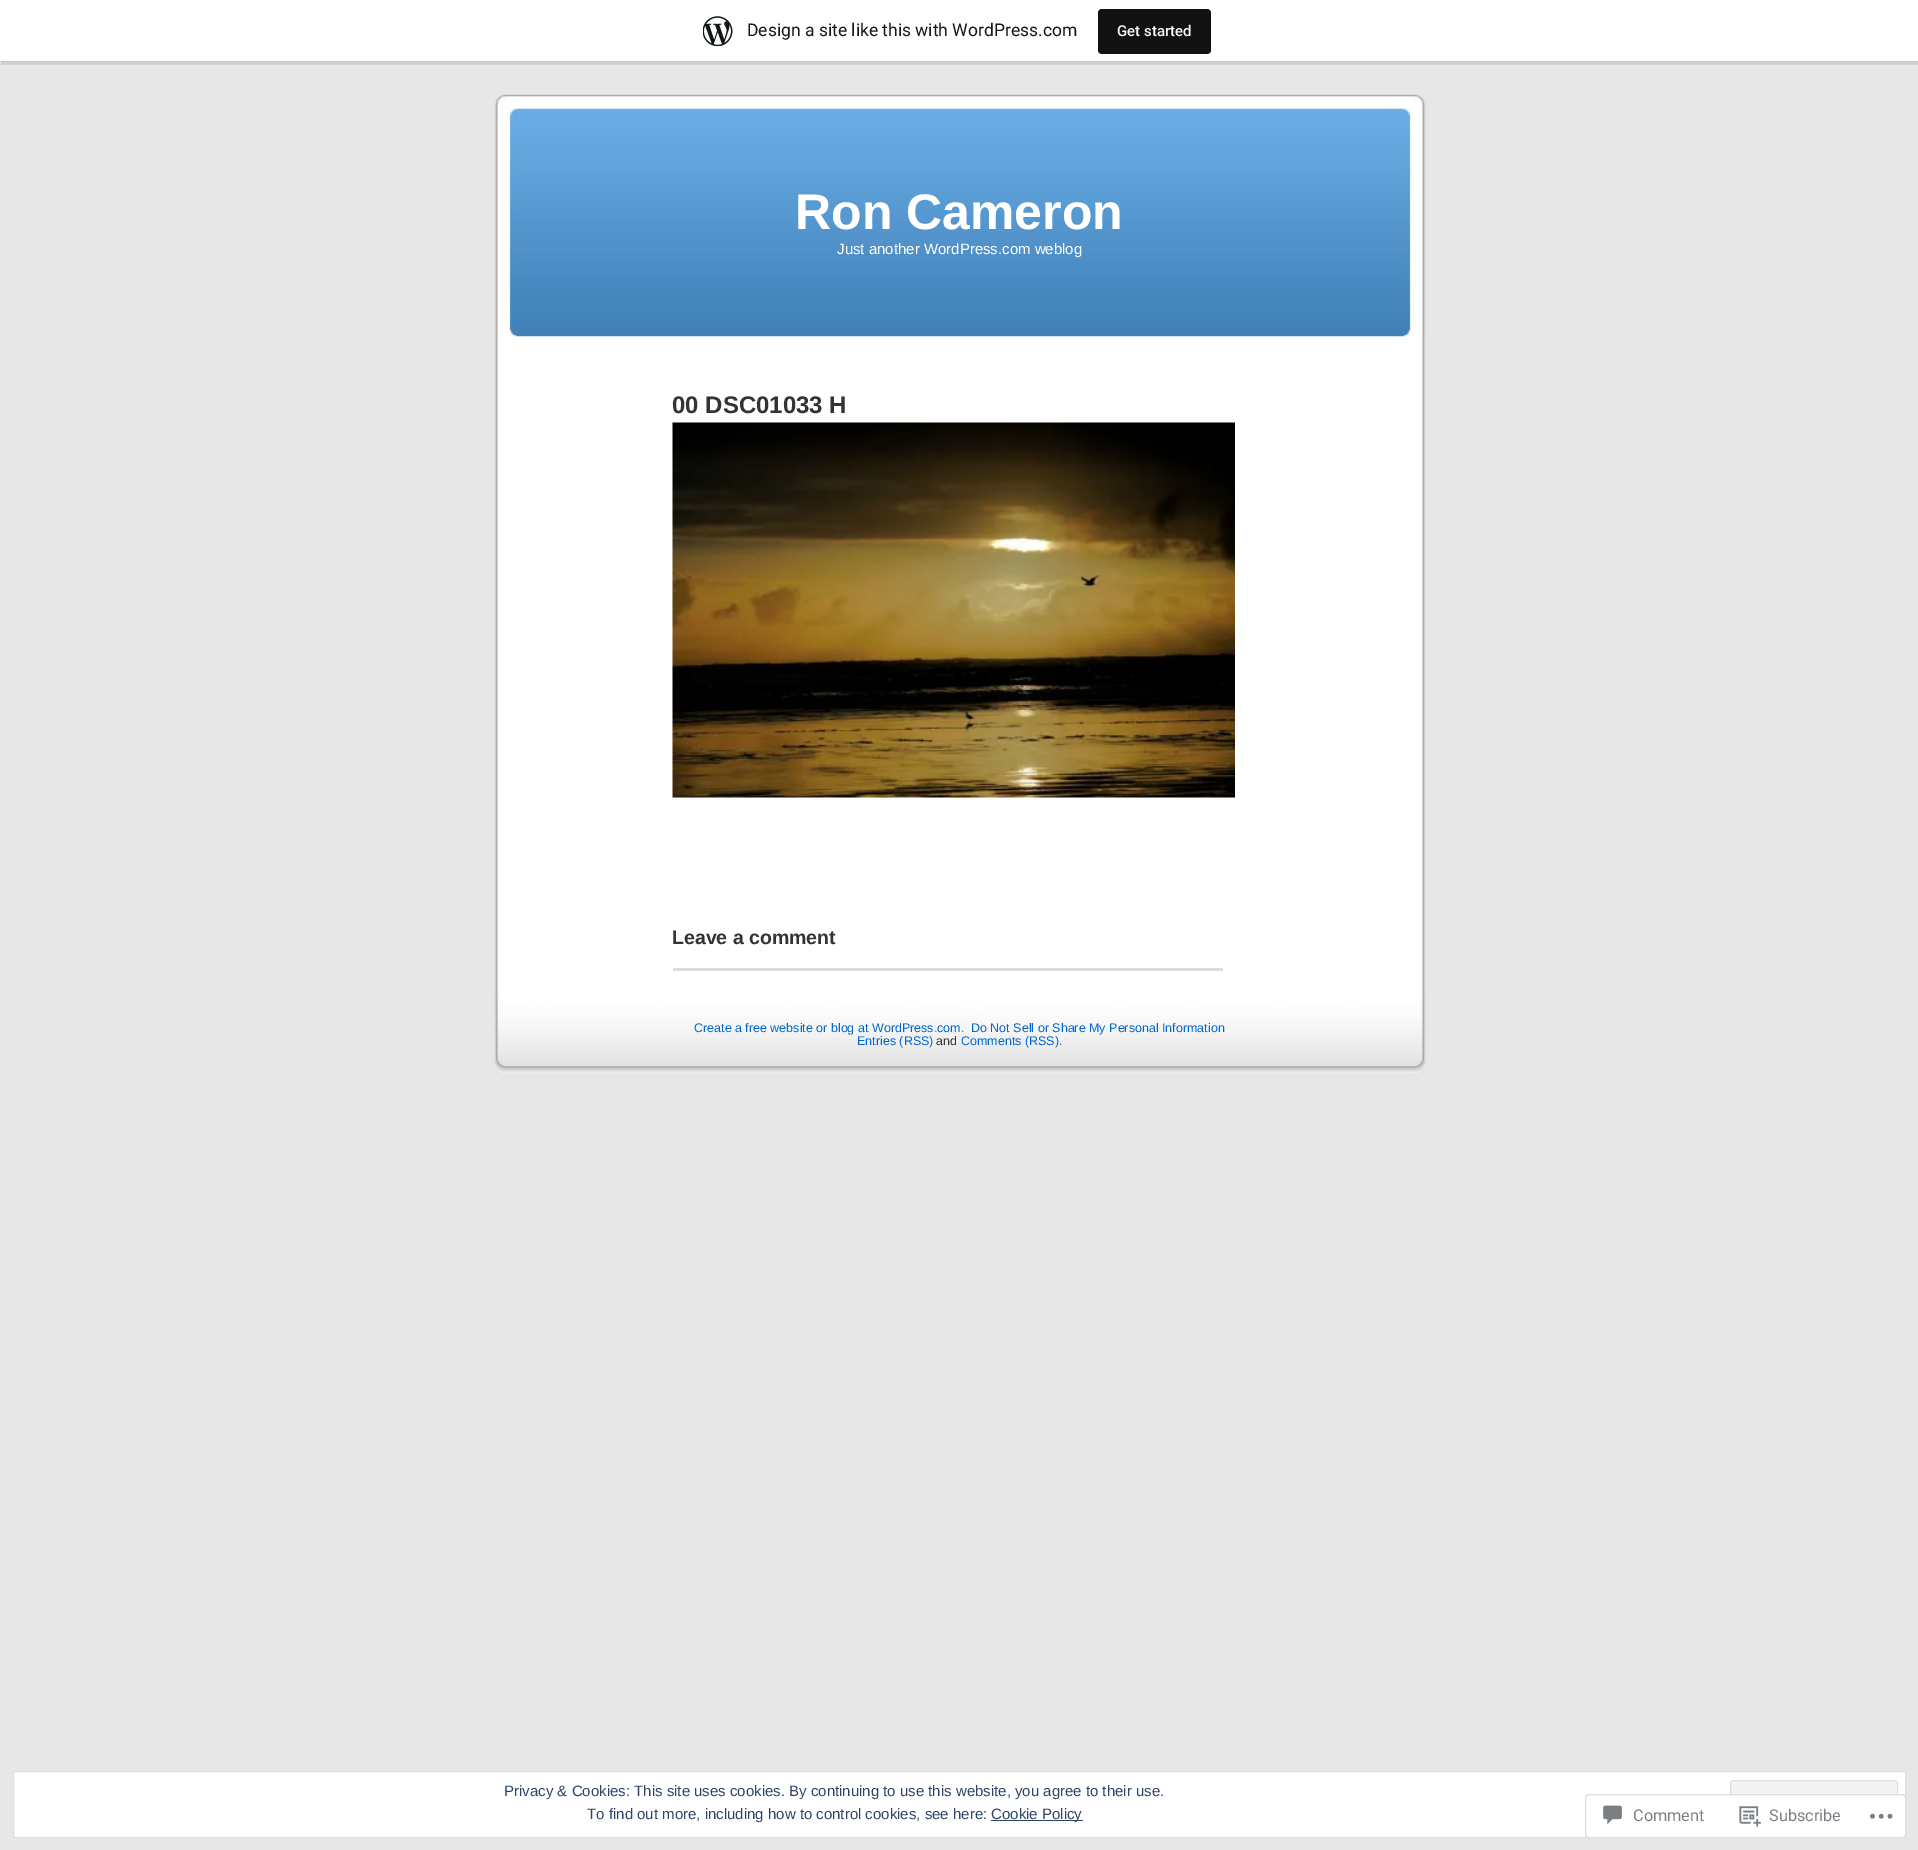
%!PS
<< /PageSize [1918 1850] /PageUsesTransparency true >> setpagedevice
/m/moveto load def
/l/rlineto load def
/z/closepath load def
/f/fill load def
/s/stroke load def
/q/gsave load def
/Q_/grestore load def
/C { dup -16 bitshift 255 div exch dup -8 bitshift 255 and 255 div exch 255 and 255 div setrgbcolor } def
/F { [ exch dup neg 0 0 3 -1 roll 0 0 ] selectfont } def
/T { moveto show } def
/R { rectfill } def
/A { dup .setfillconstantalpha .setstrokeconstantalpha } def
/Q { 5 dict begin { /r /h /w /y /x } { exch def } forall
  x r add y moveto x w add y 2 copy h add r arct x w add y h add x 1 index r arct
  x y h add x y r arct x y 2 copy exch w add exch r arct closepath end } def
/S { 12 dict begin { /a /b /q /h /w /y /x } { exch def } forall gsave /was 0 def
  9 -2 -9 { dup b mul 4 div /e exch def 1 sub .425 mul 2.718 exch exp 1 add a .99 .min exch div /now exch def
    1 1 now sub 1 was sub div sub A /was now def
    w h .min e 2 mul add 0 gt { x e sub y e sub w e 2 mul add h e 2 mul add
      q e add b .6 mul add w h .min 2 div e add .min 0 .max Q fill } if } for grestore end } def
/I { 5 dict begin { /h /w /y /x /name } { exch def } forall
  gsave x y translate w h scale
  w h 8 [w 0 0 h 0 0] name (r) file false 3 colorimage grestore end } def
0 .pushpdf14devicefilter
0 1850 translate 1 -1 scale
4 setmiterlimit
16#E7E7E7 C
0 0 1918 1850 R
16#000000 C
0 1 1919 62 0 1 .05 S
0.08 A
1 61 m 0 4 l 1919 0 l 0 -61 l -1 0 l 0 57 l z f
1 A
16#FFFFFF C
0 0 1918 61 R
(1.rgb) 703 16 30 30 I
/Roboto-Regular 17.5 F
16#171717 C
(Design a site like this with WordPress.com) 747 36 T
16#111111 C
1098 9 113 45 4 Q f
/Roboto-Medium 15 F
16#F6F7F7 C
(Get started) 1117 36 T
(2.rgb) 494 86 932 987 I
(3.rgb) 494 86 932 251 I
/LiberationSans-Bold 50 F
16#FFFFFF C
(Ron Cameron) 795 229 T
/LiberationSans-Regular 15 F
(Just another WordPress.com weblog) 837 254 T
/LiberationSans-Bold 24 F
16#333333 C
(00 DSC01033 H) 672 413 T
(4.rgb) 672 422 563 376 I
/LiberationSans-Bold 19.5 F
(Leave a comment) 672 944 T
16#DCDCDE C
673 968 550 3 R
(5.rgb) 494 995 932 78 I
/LiberationSans-Regular 12.5 F
16#0066CC C
(Create a free website or blog at WordPress.com.) 694 1032 T
(Do Not Sell or Share My Personal Information) 971 1032 T
(Entries \(RSS\)) 857 1045 T
16#333333 C
(and) 936 1045 T
16#0066CC C
(Comments \(RSS\)) 961 1045 T
16#333333 C
(.) 1059 1045 T
16#FFFFFF C
13.5 1771.5 m 1892 0 l 0 66 l -1892 0 l z q f Q_
16#DEDEDE C
s
/LiberationSans-Regular 15 F
16#2E4467 C
(Privacy & Cookies: This site uses cookies. By continuing to use this website, you agree to their use.) 504 1796 T
16#F3F3F3 C
1730.5 1780.5 167 48 3.5 Q q f Q_
16#DEDEDE C
s
16#2E4467 C
(To find out more, including how to control cookies, see here:) 587 1819 T
991 1820 92 1 R
(Cookie Policy) 991 1819 T
0.98 A
16#FFFFFF C
1585 1794 321 44 4 Q f
16#DCDCDE C
1585.5 1794.5 320 43 3.5 Q s
1 A
(6.rgb) 1603 1805 19 20 I
/Roboto-Regular 16.25 F
16#7B7F85 C
(Comment) 1633 1821 T
(7.rgb) 1739 1806 22 21 I
(Subscribe) 1769 1821 T
(8.rgb) 1870 1813 23 6 I
.poppdf14devicefilter showpage
